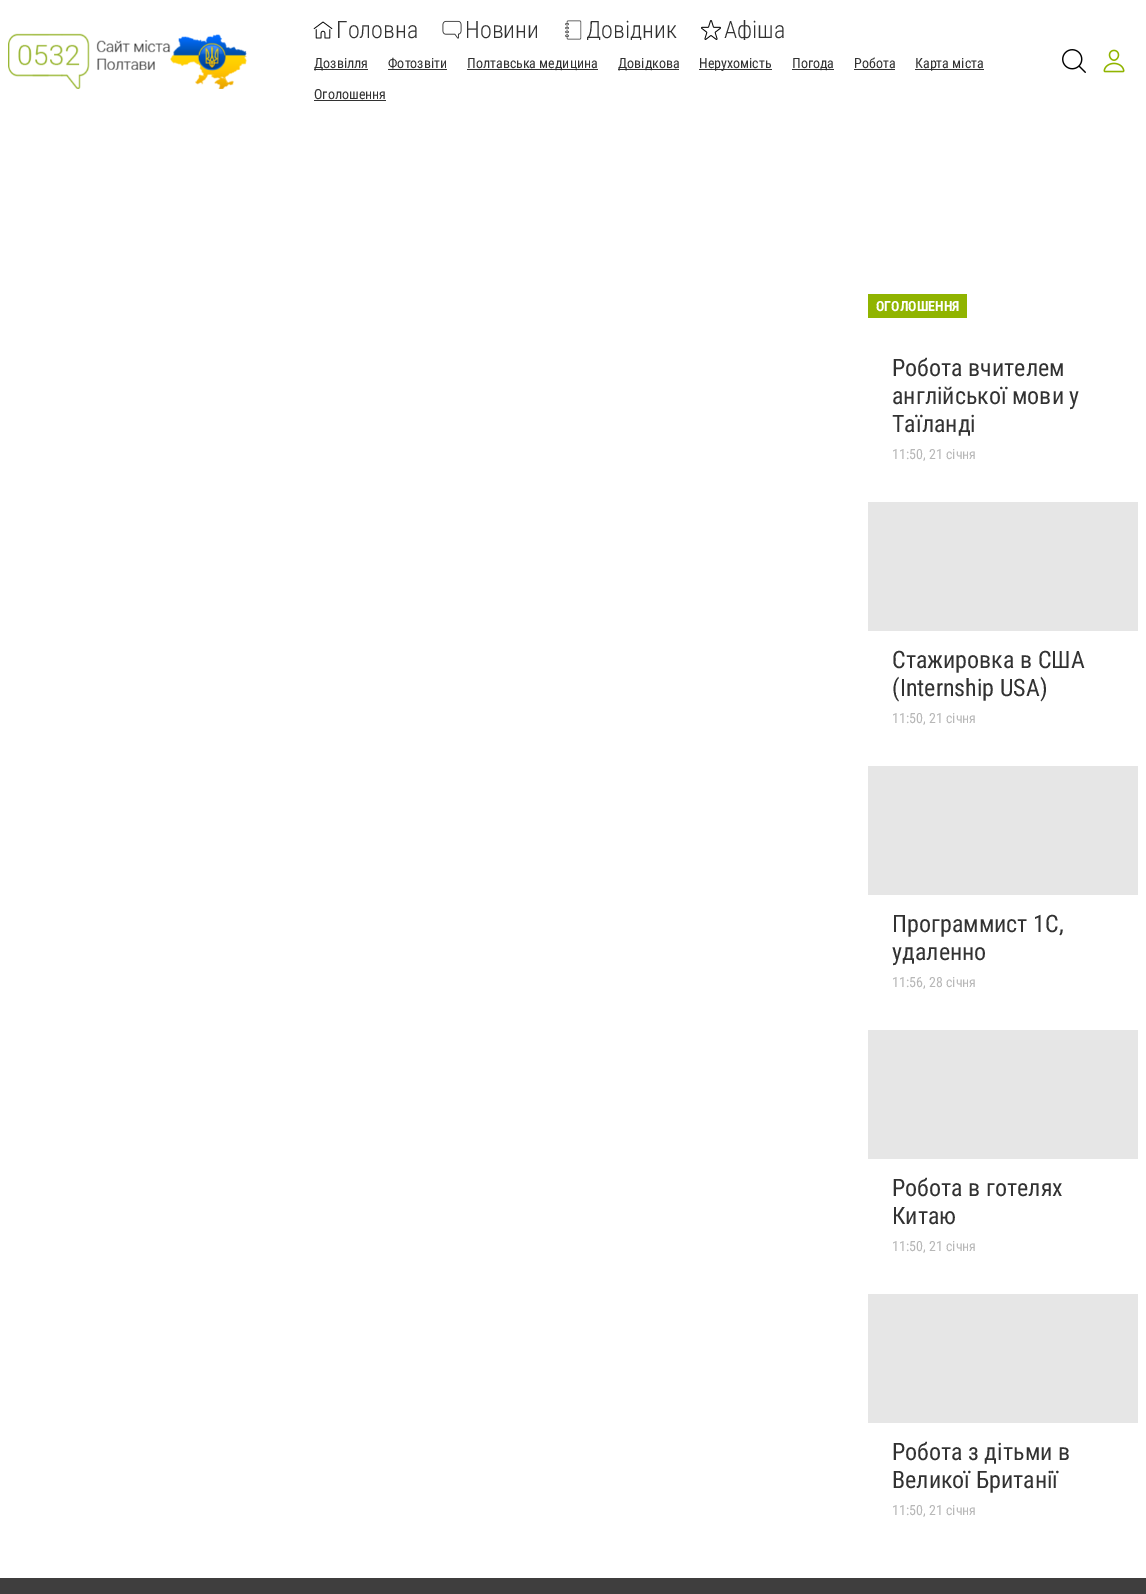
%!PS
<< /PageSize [1146 1594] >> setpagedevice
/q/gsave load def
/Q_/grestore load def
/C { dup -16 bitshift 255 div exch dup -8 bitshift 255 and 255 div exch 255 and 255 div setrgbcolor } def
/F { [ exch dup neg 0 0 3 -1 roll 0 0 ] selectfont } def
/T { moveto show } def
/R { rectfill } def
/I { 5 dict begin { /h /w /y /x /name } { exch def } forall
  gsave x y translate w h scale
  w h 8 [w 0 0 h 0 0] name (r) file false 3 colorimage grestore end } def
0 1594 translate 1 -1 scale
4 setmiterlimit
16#FFFFFF C
0 0 1146 1594 R
(1.rgb) 8 33 239 56 I
(2.rgb) 313 21 20 18 I
/RobotoCondensed-Light 24 F
16#323232 C
(Головна) 336 38 T
(3.rgb) 442 20 20 19 I
(Новини) 465 38 T
(4.rgb) 565 20 17 20 I
q
563 20 114 20 rectclip
(Довідник) 586 38 T
Q_
(5.rgb) 701 20 20 20 I
q
701 20 84 20 rectclip
(Афіша) 724 38 T
Q_
314 69 54 1 R
/RobotoCondensed-Regular 14 F
(Дозвілля) 314 68 T
(Фотозвіти) 388 68 T
388 69 59 1 R
467 69 131 1 R
(Полтавська медицина) 467 68 T
618 69 61 1 R
(Довідкова) 618 68 T
699 69 73 1 R
(Нерухомість) 699 68 T
792 69 42 1 R
(Погода) 792 68 T
(Робота) 854 68 T
854 69 41 1 R
915 69 69 1 R
(Карта міста) 915 68 T
(Оголошення) 314 99 T
314 100 72 1 R
(6.rgb) 1062 49 24 24 I
(7.rgb) 1103 49 22 24 I
16#90B400 C
868 294 99 24 R
/RobotoCondensed-Bold 14 F
16#FFFFFF C
(ОГОЛОШЕННЯ) 876 311 T
/RobotoCondensed-Regular 24 F
16#323232 C
(Робота вчителем) 892 376 T
(англійської мови у) 892 404 T
(Таїланді) 892 432 T
/RobotoCondensed-Regular 14 F
16#B7B7B7 C
(11:50, 21 січня) 892 459 T
16#E6E6E6 C
868 502 270 129 R
/RobotoCondensed-Regular 24 F
16#323232 C
(Стажировка в США) 892 668 T
(\(Internship USA\)) 892 696 T
/RobotoCondensed-Regular 14 F
16#B7B7B7 C
(11:50, 21 січня) 892 723 T
16#E6E6E6 C
868 766 270 129 R
/RobotoCondensed-Regular 24 F
16#323232 C
(Программист 1С,) 892 932 T
(удаленно) 892 960 T
/RobotoCondensed-Regular 14 F
16#B7B7B7 C
(11:56, 28 січня) 892 987 T
16#E6E6E6 C
868 1030 270 129 R
/RobotoCondensed-Regular 24 F
16#323232 C
(Робота в готелях) 892 1196 T
(Китаю) 892 1224 T
/RobotoCondensed-Regular 14 F
16#B7B7B7 C
(11:50, 21 січня) 892 1251 T
16#E6E6E6 C
868 1294 270 129 R
/RobotoCondensed-Regular 24 F
16#323232 C
(Робота з дітьми в) 892 1460 T
(Великої Британії) 892 1488 T
/RobotoCondensed-Regular 14 F
16#B7B7B7 C
(11:50, 21 січня) 892 1515 T
16#3F3E3E C
0 1578 1146 16 R
showpage
